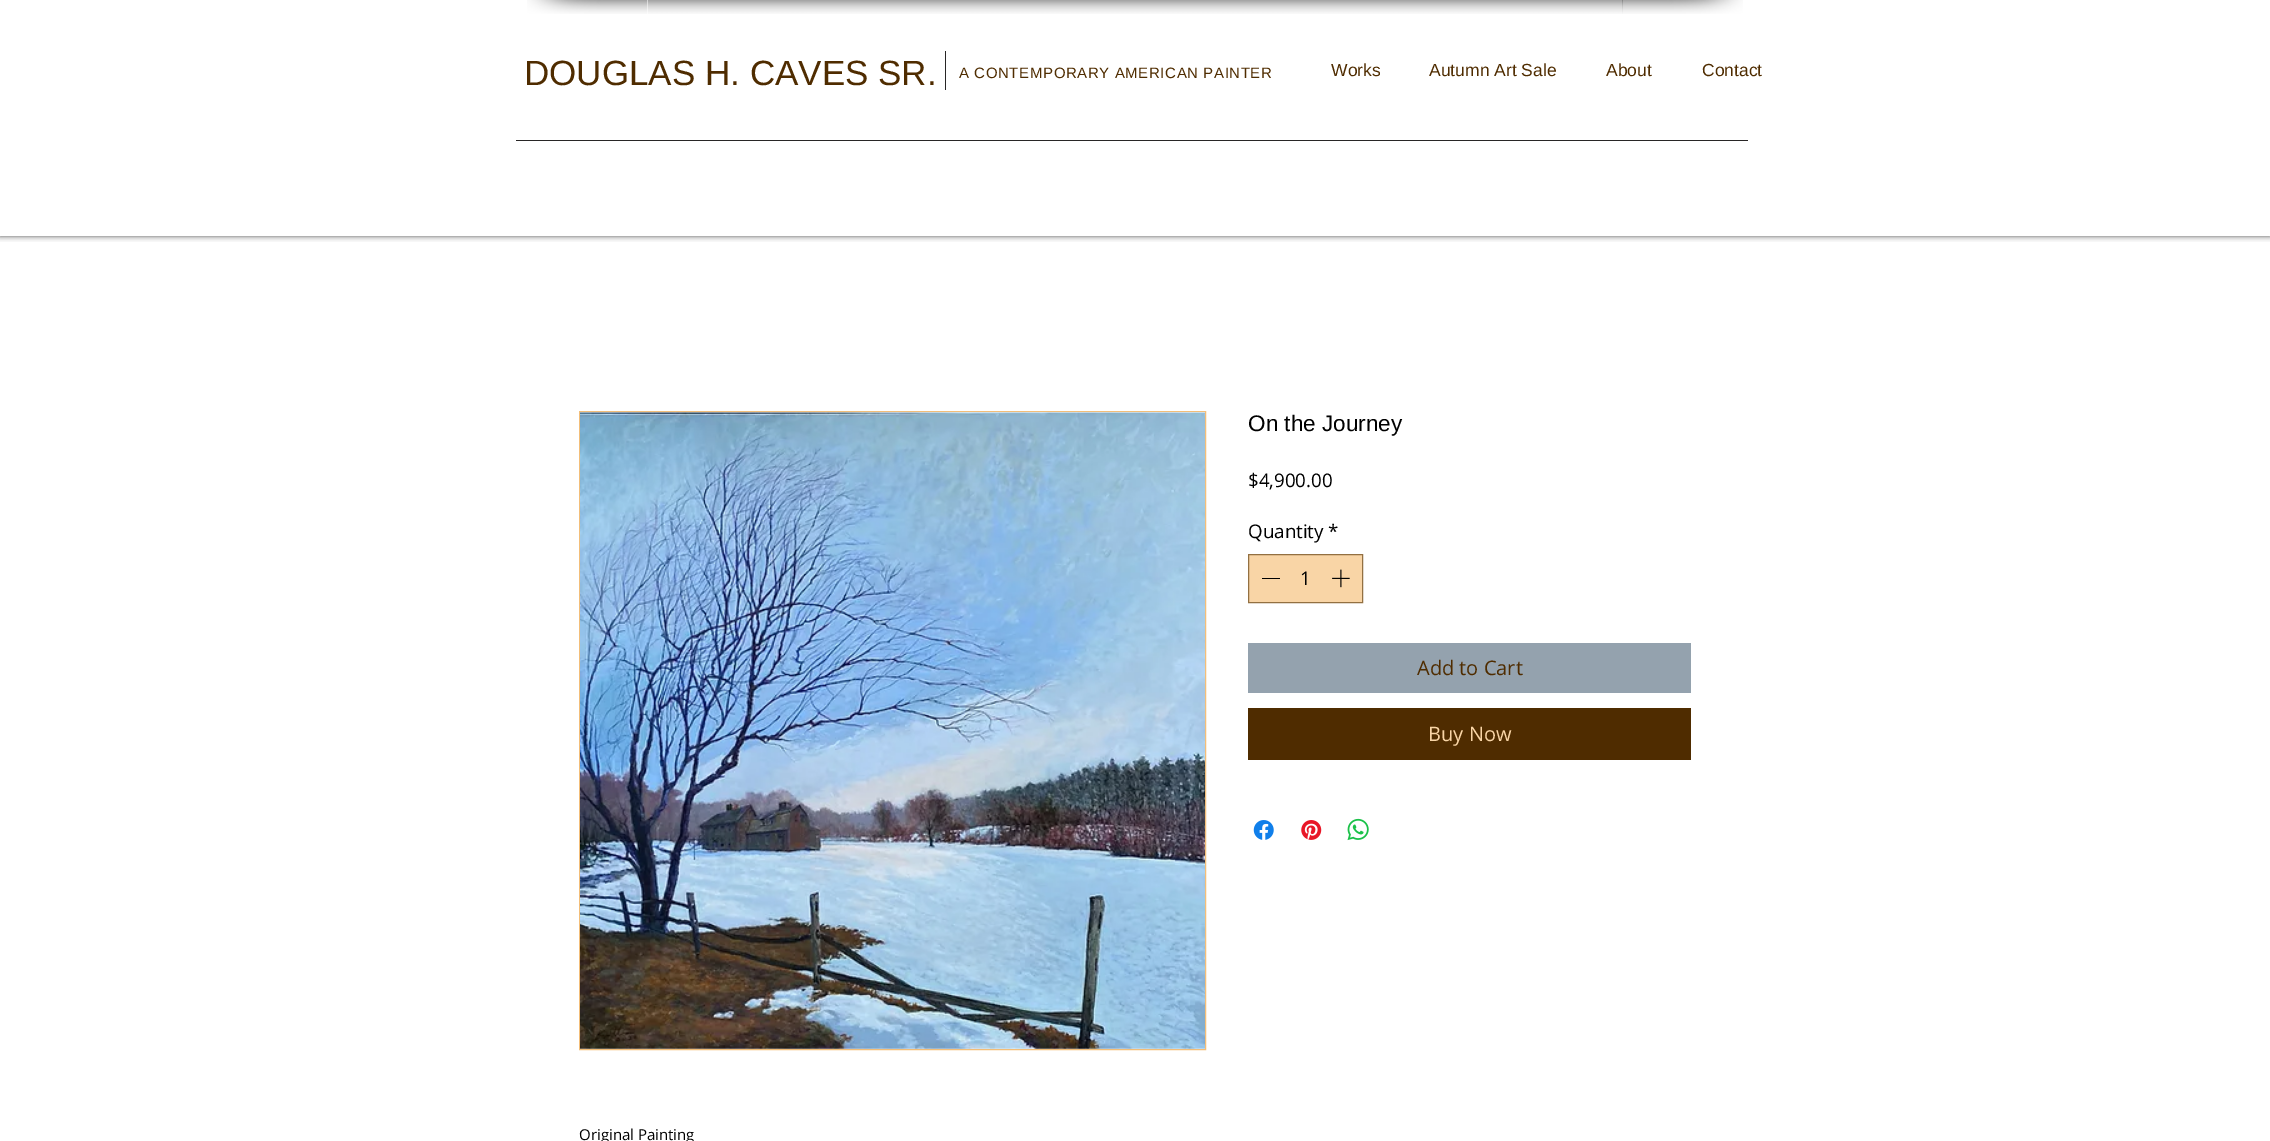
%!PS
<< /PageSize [2270 1141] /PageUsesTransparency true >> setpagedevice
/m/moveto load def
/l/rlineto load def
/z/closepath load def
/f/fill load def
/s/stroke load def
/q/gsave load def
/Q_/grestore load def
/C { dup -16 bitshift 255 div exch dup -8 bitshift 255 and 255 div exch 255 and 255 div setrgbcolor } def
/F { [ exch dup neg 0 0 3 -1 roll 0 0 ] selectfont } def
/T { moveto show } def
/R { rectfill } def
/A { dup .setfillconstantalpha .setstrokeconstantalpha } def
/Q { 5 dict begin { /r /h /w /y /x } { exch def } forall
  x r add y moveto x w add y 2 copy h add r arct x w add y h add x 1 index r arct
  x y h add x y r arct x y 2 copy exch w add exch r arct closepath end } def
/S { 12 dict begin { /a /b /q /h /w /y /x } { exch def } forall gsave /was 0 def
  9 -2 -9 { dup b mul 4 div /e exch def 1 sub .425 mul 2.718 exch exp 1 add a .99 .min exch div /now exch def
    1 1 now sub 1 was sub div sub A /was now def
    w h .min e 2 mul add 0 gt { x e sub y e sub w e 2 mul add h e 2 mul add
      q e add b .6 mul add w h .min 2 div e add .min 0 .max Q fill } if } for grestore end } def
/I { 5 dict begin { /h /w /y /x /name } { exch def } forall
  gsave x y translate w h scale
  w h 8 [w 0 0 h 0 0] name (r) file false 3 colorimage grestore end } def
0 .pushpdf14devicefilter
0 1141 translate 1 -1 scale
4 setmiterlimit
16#FFFFFF C
0 0 2270 1141 R
(1.rgb) 527 0 121 14 I
(2.rgb) 648 0 975 14 I
(3.rgb) 1622 0 121 14 I
q
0 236 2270 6 rectclip
16#000000 C
0 0 2270 236 0 3 .7 S
Q_
/LiberationSans-Regular 35 F
16#4F2C00 C
(DOUGLAS H. CAVES SR.) 524 85 T
16#282626 C
945 51 1 39 R
/LiberationSans-Regular 15 F
16#4F2C00 C
959 78 m .6 0 (A CONTEMPORARY AMERICAN PAINTER) ashow
/LiberationSans-Regular 17.5 F
(Works) 1331 76 T
(Autumn Art Sale) 1429 76 T
(About) 1606 76 T
(Contact) 1702 76 T
16#282626 C
516 140 1232 1 R
/LiberationSans-Regular 22.5 F
16#000000 C
(On the Journey) 1248 431 T
/OpenSans-Regular 18.75 F
($4,900.00) 1248 487 T
(Quantity *) 1248 538 T
16#F9D5A6 C
1248.5 554.5 m 114 0 l 0 48 l -114 0 l z q f Q_
16#937042 C
s
16#000000 C
1262 578 18 1 R
(1) 1300 585 T
(4.rgb) 1332 569 18 19 I
16#94A2AE C
1248 643 443 50 R
/OpenSans-Regular 20 F
16#4F2C00 C
(Add to Cart) 1417 675 T
1248 708 443 52 R
16#F9D5A6 C
(Buy Now) 1428 741 T
(5.rgb) 1253 820 21 20 I
(6.rgb) 1301 820 21 20 I
(7.rgb) 1347 818 22 23 I
16#F3BE79 C
579.5 411.5 626 638 rectstroke
(8.rgb) 580 412 625 637 I
/OpenSans-Regular 15 F
16#000000 C
(Original Painting) 579 1140 T
.poppdf14devicefilter showpage
